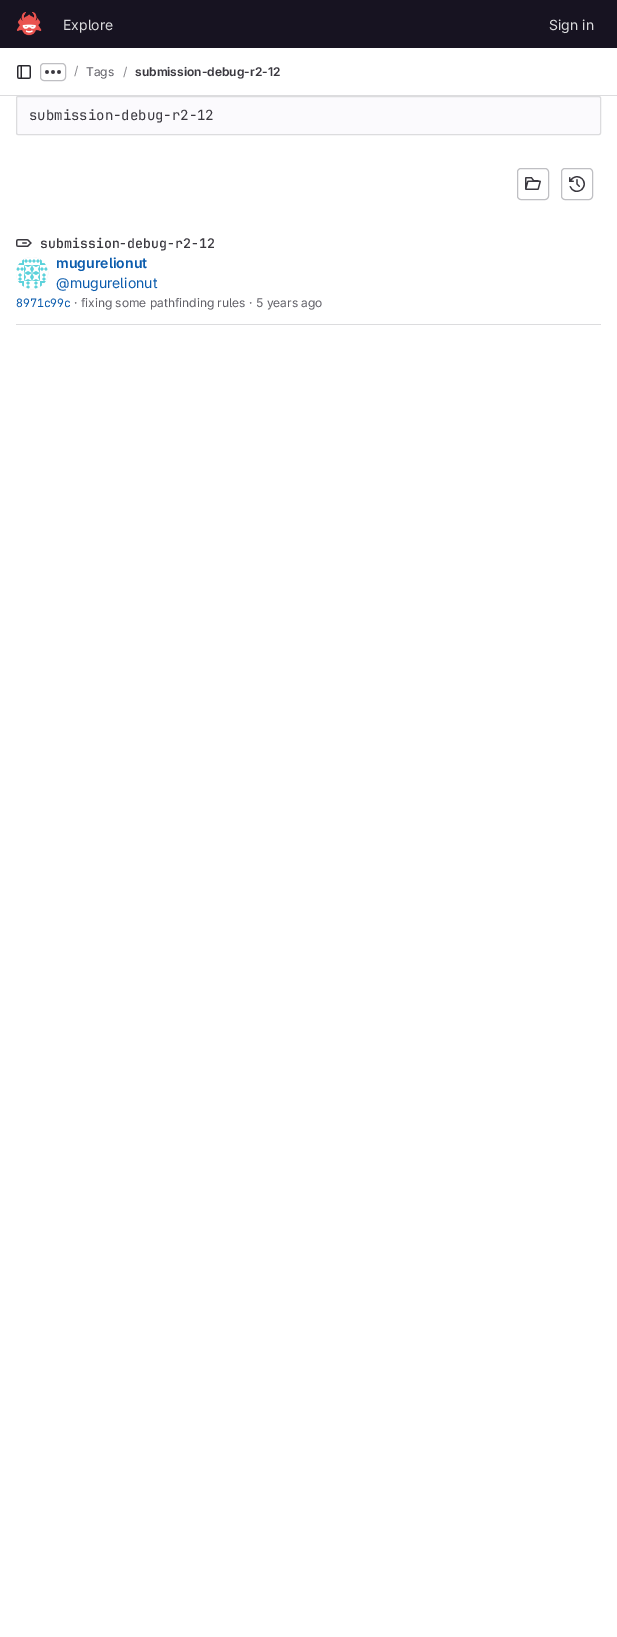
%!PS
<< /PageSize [617 1637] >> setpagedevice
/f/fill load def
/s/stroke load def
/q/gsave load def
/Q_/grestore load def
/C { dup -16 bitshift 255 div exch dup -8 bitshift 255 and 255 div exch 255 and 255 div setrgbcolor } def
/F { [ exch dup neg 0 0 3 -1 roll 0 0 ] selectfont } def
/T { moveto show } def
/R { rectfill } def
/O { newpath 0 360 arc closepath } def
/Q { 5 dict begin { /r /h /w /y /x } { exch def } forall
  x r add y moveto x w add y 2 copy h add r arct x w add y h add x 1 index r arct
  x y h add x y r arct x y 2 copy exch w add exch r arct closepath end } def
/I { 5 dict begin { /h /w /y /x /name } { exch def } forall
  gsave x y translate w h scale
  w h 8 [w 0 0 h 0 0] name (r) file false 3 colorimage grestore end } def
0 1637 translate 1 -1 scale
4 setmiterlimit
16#FFFFFF C
0 0 617 1637 R
16#171321 C
0 0 617 48 R
(1.rgb) 16 12 26 24 I
/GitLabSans-Regular 14 F
16#DCDCDE C
(Explore) 63 30 T
(Sign in) 549 30 T
0 95 617 1 R
(2.rgb) 17 65 14 14 I
16#BFBFC3 C
40.5 63.5 25 17 3.5 Q s
(3.rgb) 45 70 16 4 I
/GitLabSans-Regular 12 F
16#89888D C
(/) 74 75 T
16#626168 C
(Tags) 86 76 T
16#89888D C
(/) 123 76 T
/GitLabSans-SemiBold 12 F
16#3A383F C
(submission-debug-r2-12) 135 76 T
16#DCDCDE C
16 324 585 1 R
16#FBFAFD C
16.5 96.5 584 38 1.5 Q q f Q_
16#DCDCDE C
s
/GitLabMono-Regular 14 F
16#3A383F C
(submission-debug-r2-12) 29 120 T
16#BFBFC3 C
517.5 168.5 31 31 3.5 Q s
(4.rgb) 525 177 16 13 I
561.5 168.5 31 31 3.5 Q s
(5.rgb) 569 176 16 16 I
(6.rgb) 16 239 16 8 I
/GitLabMono-SemiBold 13.25 F
16#3A383F C
(submission-debug-r2-12) 40 248 T
16#E8E7EA C
32 273 15.5 O s
(7.rgb) 16 257 32 32 I
/GitLabSans-SemiBold 14 F
16#0B5CAD C
(mugurelionut) 56 268 T
/GitLabSans-Regular 14 F
(@mugurelionut) 56 288 T
/GitLabMono-Regular 11.5 F
(8971c99c) 16 307 T
/GitLabSans-Regular 12 F
16#626168 C
(· fixing some pathfinding rules · 5 years ago) 74 307 T
showpage
